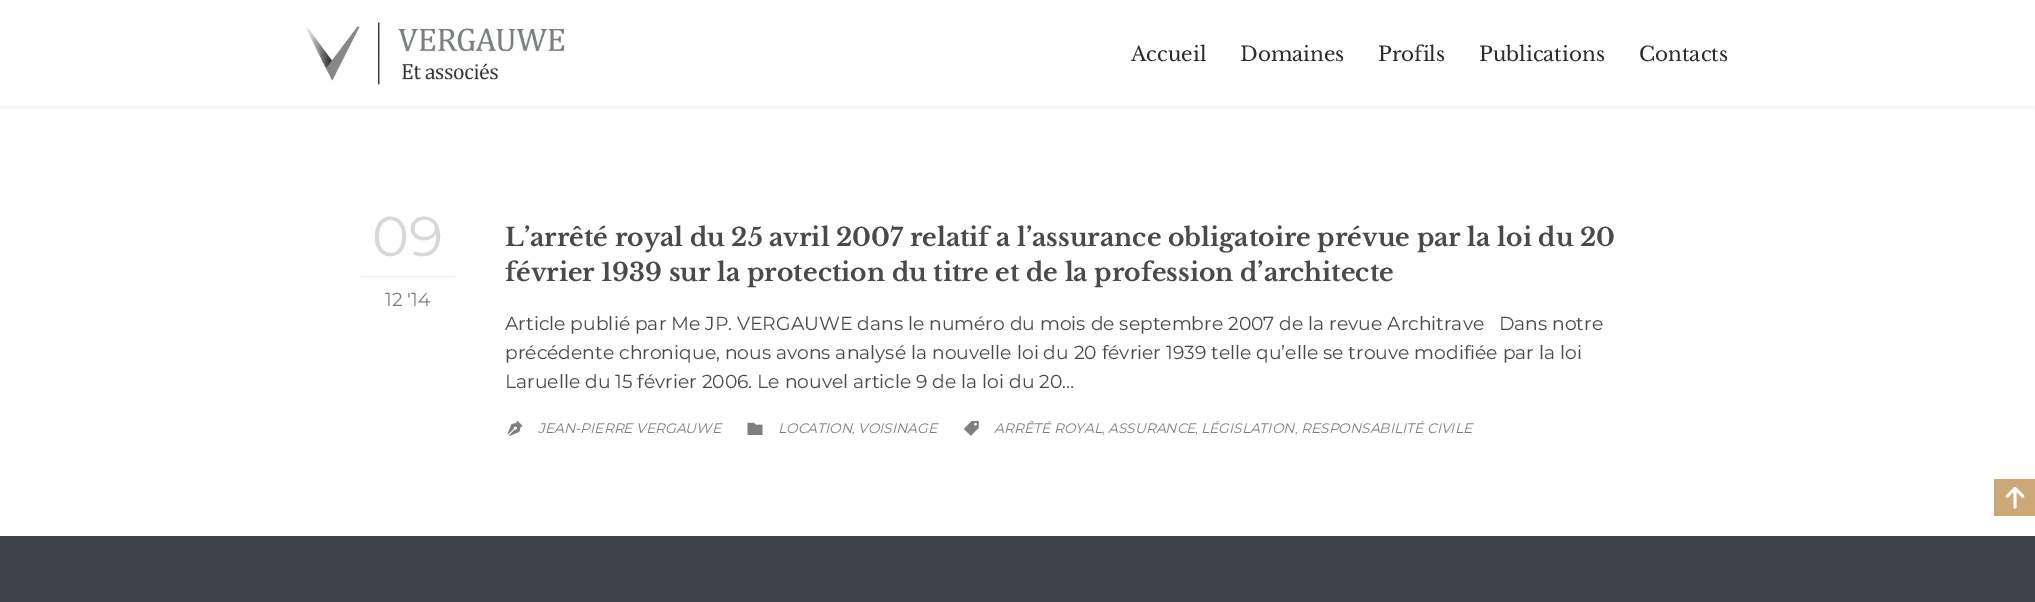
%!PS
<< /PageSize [2035 602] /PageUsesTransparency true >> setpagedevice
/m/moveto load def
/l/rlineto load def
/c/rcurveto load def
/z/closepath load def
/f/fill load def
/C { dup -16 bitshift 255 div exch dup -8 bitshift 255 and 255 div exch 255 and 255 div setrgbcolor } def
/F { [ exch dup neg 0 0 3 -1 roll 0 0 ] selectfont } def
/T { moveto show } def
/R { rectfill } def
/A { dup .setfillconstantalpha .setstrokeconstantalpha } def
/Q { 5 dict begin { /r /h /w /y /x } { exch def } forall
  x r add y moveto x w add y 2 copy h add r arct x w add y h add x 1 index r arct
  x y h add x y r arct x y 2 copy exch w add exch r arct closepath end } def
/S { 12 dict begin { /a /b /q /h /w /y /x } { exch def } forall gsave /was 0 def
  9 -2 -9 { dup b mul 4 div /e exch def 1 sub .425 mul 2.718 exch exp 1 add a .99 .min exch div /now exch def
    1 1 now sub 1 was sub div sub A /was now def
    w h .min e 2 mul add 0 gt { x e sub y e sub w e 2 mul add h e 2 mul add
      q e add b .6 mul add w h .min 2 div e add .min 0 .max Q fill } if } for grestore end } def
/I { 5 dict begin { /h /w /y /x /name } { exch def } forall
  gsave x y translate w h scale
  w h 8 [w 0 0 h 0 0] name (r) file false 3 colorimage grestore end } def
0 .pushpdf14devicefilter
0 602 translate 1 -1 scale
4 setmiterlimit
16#404449 C
0 0 2035 602 R
16#FFFFFF C
0 106 2035 430 R
16#000000 C
0 3 2035 106 0 1 .04 S
16#FFFFFF C
0 0 2035 106 R
(1.rgb) 306 22 259 63 I
/LibreBaskerville-Regular 20 F
16#2C2C2C C
(Accueil) 1131 61 T
(Domaines) 1240 61 T
(Profils) 1378 61 T
(Publications) 1479 61 T
(Contacts) 1639 61 T
16#EDEDED C
361 276 94 1 R
/Montserrat-Regular 56 F
16#D8D8D8 C
(09) 372 256 T
/Montserrat-Regular 18.75 F
16#7C7F82 C
(12 '14) 385 306 T
/LibreBaskerville-Bold 25 F
16#4A4A4A C
(L’arrêté royal du 25 avril 2007 relatif a l’assurance obligatoire prévue par la loi du 20) 505 246 T
(février 1939 sur la protection du titre et de la profession d’architecte) 505 281 T
/Montserrat-Regular 18.75 F
(Article publié par Me JP. VERGAUWE dans le numéro du mois de septembre 2007 de la revue Architrave   Dans notre) 505 330 T
(précédente chronique, nous avons analysé la nouvelle loi du 20 février 1939 telle qu’elle se trouve modifiée par la loi) 505 359 T
(Laruelle du 15 février 2006. Le nouvel article 9 de la loi du 20…) 505 388 T
(2.rgb) 507 421 16 15 I
/Montserrat-Italic 13.75 F
16#7C7F82 C
(JEAN-PIERRE VERGAUWE) 538 433 T
(3.rgb) 747 422 16 13 I
(LOCATION) 778 433 T
(VOISINAGE) 858 433 T
/Montserrat-Regular 12 F
(,) 852 433 T
(4.rgb) 963 420 16 16 I
/Montserrat-Italic 13.75 F
(ARRÊTÉ ROYAL) 994 433 T
/Montserrat-Regular 12 F
(,) 1102 433 T
/Montserrat-Italic 13.75 F
(ASSURANCE) 1108 433 T
(LÉGISLATION) 1201 433 T
(RESPONSABILITÉ CIVILE) 1301 433 T
/Montserrat-Regular 12 F
(,) 1195 433 T
(,) 1295 433 T
16#CCA876 C
1995 479 m 40 0 l 0 37 l -41 0 l 0 -36 l 0 -.5 .5 -1 1 -1 c z f
(5.rgb) 2005 486 20 23 I
.poppdf14devicefilter showpage
